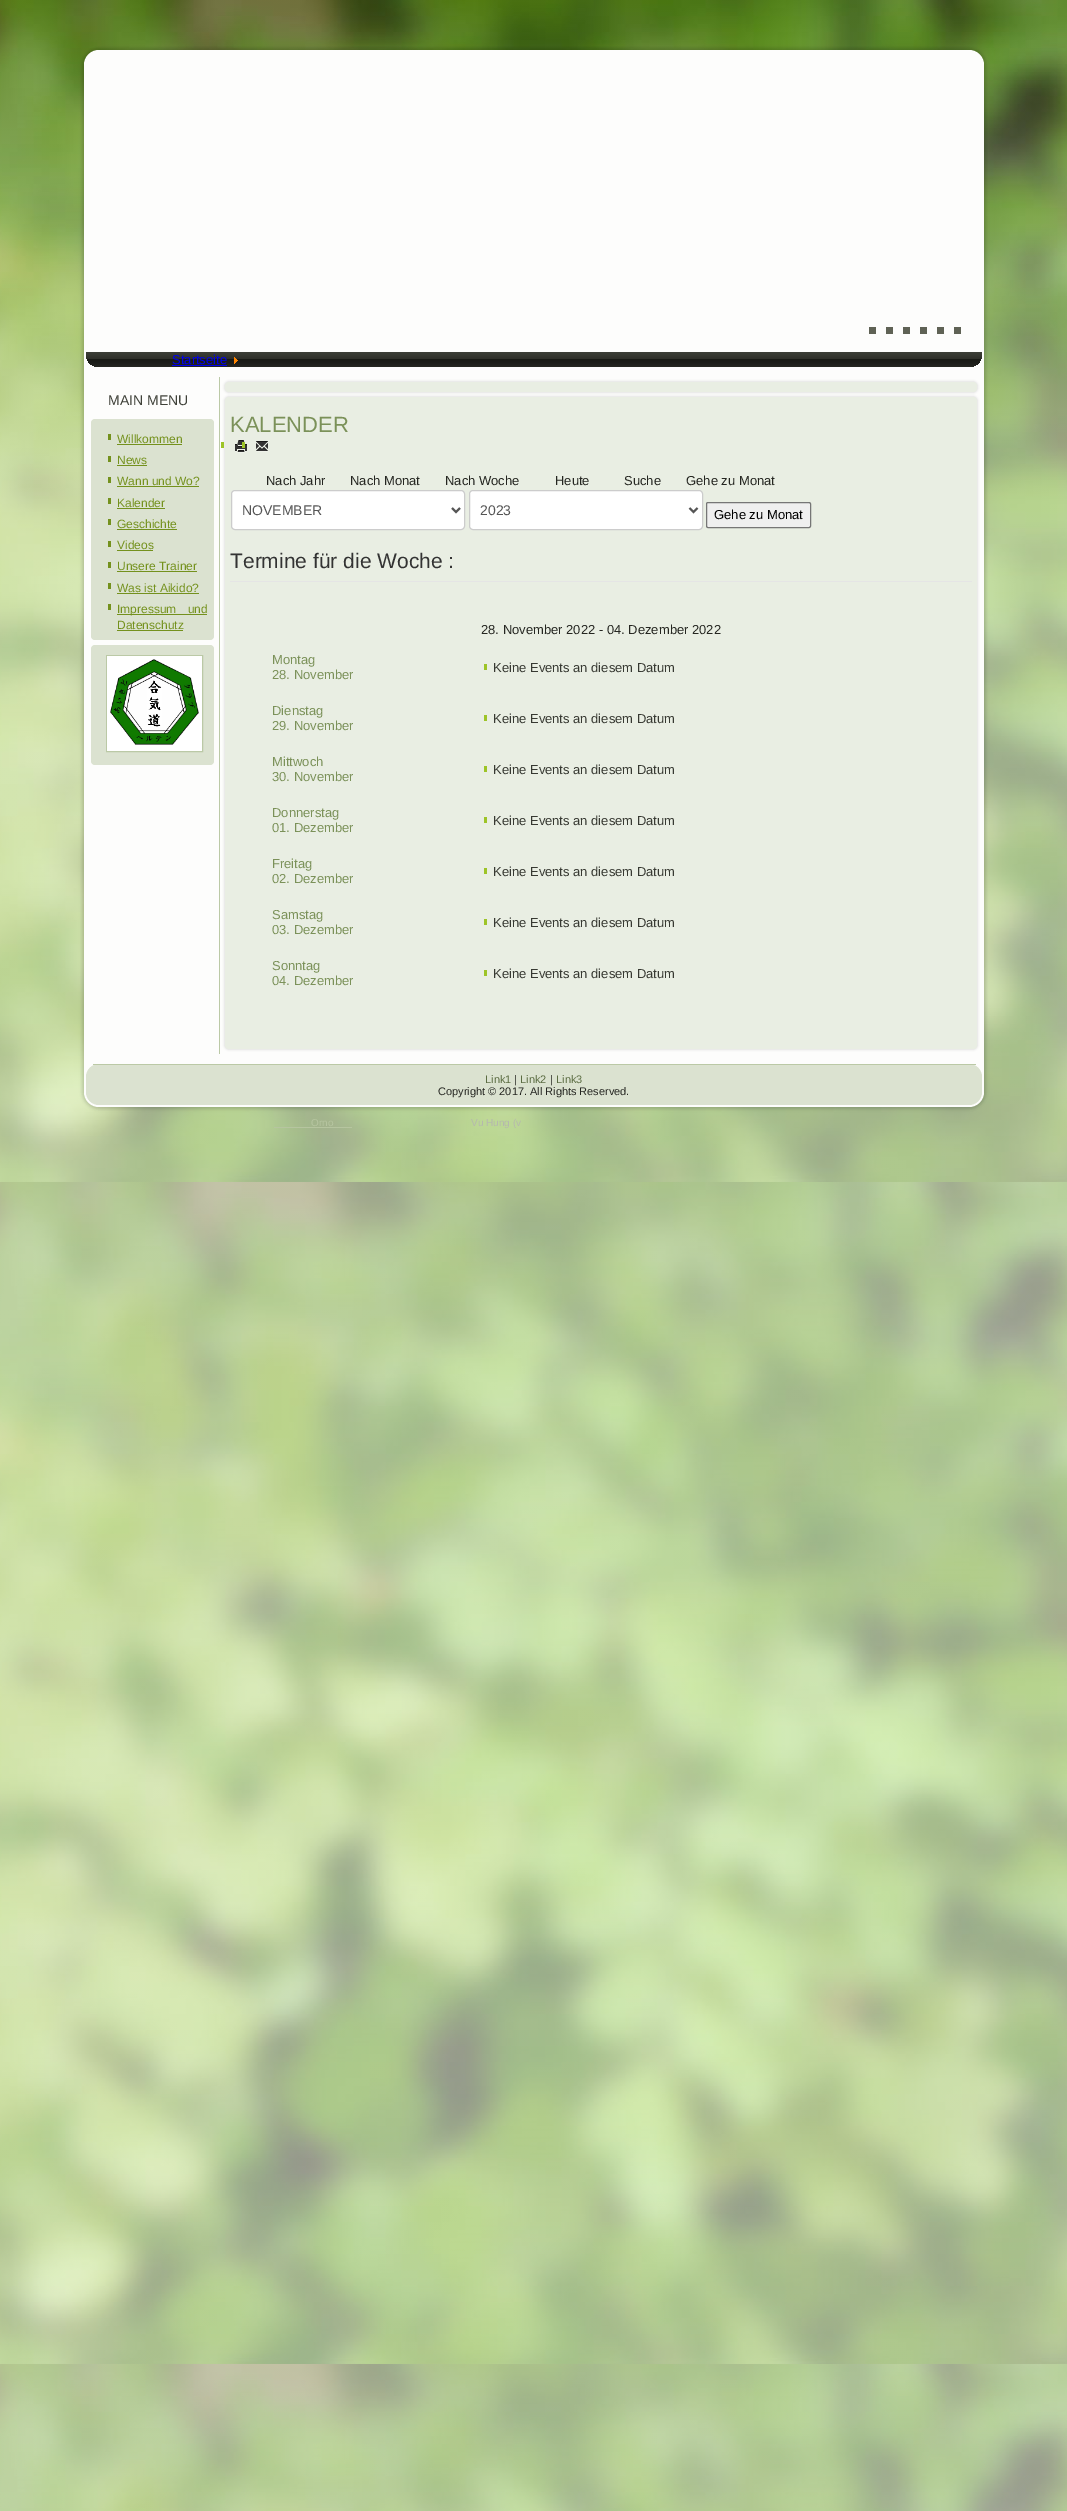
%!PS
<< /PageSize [1067 2511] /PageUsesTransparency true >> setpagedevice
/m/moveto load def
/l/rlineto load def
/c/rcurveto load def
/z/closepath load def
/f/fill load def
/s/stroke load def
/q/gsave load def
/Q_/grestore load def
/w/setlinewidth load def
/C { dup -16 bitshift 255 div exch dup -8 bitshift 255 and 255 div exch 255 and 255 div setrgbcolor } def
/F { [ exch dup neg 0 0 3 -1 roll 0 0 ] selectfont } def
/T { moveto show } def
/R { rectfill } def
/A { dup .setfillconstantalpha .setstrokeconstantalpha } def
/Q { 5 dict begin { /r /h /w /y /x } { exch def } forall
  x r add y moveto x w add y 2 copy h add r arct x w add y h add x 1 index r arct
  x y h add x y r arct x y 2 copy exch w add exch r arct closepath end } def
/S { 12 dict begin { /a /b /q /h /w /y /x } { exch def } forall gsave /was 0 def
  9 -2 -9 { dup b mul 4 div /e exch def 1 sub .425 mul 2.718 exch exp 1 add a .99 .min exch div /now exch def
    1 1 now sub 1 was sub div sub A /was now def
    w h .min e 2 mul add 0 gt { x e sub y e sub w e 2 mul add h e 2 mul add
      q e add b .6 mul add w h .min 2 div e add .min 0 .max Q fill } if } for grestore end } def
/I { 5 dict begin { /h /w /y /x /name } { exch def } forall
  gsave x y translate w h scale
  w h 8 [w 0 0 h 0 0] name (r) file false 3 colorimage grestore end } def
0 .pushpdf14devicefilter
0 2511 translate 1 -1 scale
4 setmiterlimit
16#FFFFFF C
0 0 1067 2511 R
(1.rgb) 0 0 1067 2511 I
16#000000 C
82 48 904 1061 17 1.5 .15 S
16#FDFDFC C
84 50 900 1057 15 Q f
16#5F6255 C
869 327 7 7 .5 Q f
886 327 7 7 .5 Q f
903 327 7 7 .5 Q f
920 327 7 7 .5 Q f
937 327 7 7 .5 Q f
954 327 7 7 .5 Q f
q 86 352 m 896 0 l 0 2 l 0 7 -6 13 -13 13 c -870 0 l -7 0 -13 -6 -13 -13 c z clip newpath
<< /ShadingType 2 /ColorSpace /DeviceRGB /Coords [534 352 534 367] /Extend [true true] /Function << /FunctionType 3 /Domain [0 1] /Functions [<< /FunctionType 2 /Domain [0 1] /C0 [.239 .247 .216] /C1 [.176 .18 .157] /N 1 >> << /FunctionType 2 /Domain [0 1] /C0 [.094 .098 .082] /C1 [.145 .149 .129] /N 1 >>] /Bounds [.5] /Encode [0 1 0 1] >> >> shfill Q_
/LiberationSans-Regular 13 F
16#0000EE C
(Startseite) 172 364 T
172 365 55 1 R
(2.rgb) 234 357 4 7 I
16#BBC9A6 C
219 377 1 677 R
/LiberationSans-Regular 14 F
16#3F4139 C
(MAIN MENU) 108 405 T
16#DBE2D0 C
91 419 123 221 4 Q f
16#74911D C
108 434 3 6 R
/LiberationSans-Regular 12 F
(Willkommen) 117 443 T
117 444 65 1 R
108 456 3 6 R
(News) 117 464 T
117 465 30 1 R
108 477 3 6 R
(Wann und Wo?) 117 485 T
117 486 82 1 R
108 498 3 6 R
(Kalender) 117 507 T
117 508 48 1 R
108 519 3 6 R
(Geschichte) 117 528 T
117 529 60 1 R
108 541 3 6 R
(Videos) 117 549 T
117 550 36 1 R
108 562 3 6 R
(Unsere Trainer) 117 570 T
117 571 80 1 R
108 583 3 6 R
(Was ist Aikido?) 117 592 T
117 593 82 1 R
108 604 3 6 R
117 614 90 1 R
117 613 m 8 0 32 (Impressum und) widthshow
(Datenschutz) 117 629 T
117 630 66 1 R
16#DBE2D0 C
91 645 123 120 4 Q f
16#BBC9A6 C
106.5 655.5 96 96 rectstroke
(3.rgb) 107 656 95 95 I
16#000000 C
224 381 754 12 5 1 .1 S
16#E9EEE3 C
225 382 752 10 4 Q f
16#000000 C
224 396 754 654 5 1 .1 S
16#E9EEE3 C
225 397 752 652 4 Q f
/LiberationSans-Regular 22 F
16#7B9159 C
(KALENDER) 230 432 T
16#9DC427 C
221 442 3 6 R
(4.rgb) 235 440 12 13 I
242 442 3 6 R
(5.rgb) 256 441 12 11 I
/LiberationSans-Regular 13 F
16#252621 C
(Nach Jahr) 266 485 T
(Nach Monat) 350 485 T
(Nach Woche) 445 485 T
(Heute) 555 485 T
(Suche) 624 485 T
(Gehe zu Monat) 686 485 T
16#FFFFFF C
231.5 490.5 233 39 3.5 Q q f Q_
16#CCCCCC C
s
16#555555 C
2 w
452 508 m 4 4 l 4 -4 l s
/LiberationSans-Regular 14 F
(NOVEMBER) 242 515 T
16#FFFFFF C
469.5 490.5 233 39 3.5 Q q f Q_
16#CCCCCC C
1 w
s
16#555555 C
2 w
689.5 508 m 4 4 l 4 -4 l s
(2023) 480 515 T
16#EFEFEF C
706.5 502.5 104 25 1.5 Q q f Q_
16#767676 C
1 w
s
/LiberationSans-Regular 13 F
16#000000 C
(Gehe zu Monat) 714 519 T
16#E5E5E5 C
230 581 742 1 R
/LiberationSans-Regular 21 F
16#333333 C
(Termine für die Woche :) 230 568 T
/LiberationSans-Regular 13 F
16#252621 C
(28. November 2022 - 04. Dezember 2022) 481 634 T
16#7B9159 C
(Montag) 272 664 T
(28. November) 272 679 T
16#9DC427 C
484 664 3 6 R
16#373932 C
(Keine Events an diesem Datum) 493 672 T
16#7B9159 C
(Dienstag) 272 715 T
(29. November) 272 730 T
16#9DC427 C
484 715 3 6 R
16#373932 C
(Keine Events an diesem Datum) 493 723 T
16#7B9159 C
(Mittwoch) 272 766 T
(30. November) 272 781 T
16#9DC427 C
484 766 3 6 R
16#373932 C
(Keine Events an diesem Datum) 493 774 T
16#7B9159 C
(Donnerstag) 272 817 T
(01. Dezember) 272 832 T
16#9DC427 C
484 817 3 6 R
16#373932 C
(Keine Events an diesem Datum) 493 825 T
16#7B9159 C
(Freitag) 272 868 T
(02. Dezember) 272 883 T
16#9DC427 C
484 868 3 6 R
16#373932 C
(Keine Events an diesem Datum) 493 876 T
16#7B9159 C
(Samstag) 272 919 T
(03. Dezember) 272 934 T
16#9DC427 C
484 919 3 6 R
16#373932 C
(Keine Events an diesem Datum) 493 927 T
16#7B9159 C
(Sonntag) 272 970 T
(04. Dezember) 272 985 T
16#9DC427 C
484 970 3 6 R
16#373932 C
(Keine Events an diesem Datum) 493 978 T
16#DBE2D0 C
86 1064 896 41 13 Q f
16#BBC9A6 C
93 1064 883 1 R
/LiberationSans-Regular 11 F
16#5B6C42 C
(Link1) 485 1083 T
16#252621 C
(|) 514 1083 T
16#5B6C42 C
(Link2) 520 1083 T
16#252621 C
(|) 550 1083 T
16#5B6C42 C
(Link3) 556 1083 T
16#252621 C
(Copyright © 2017. All Rights Reserved.) 438 1095 T
/LiberationSans-Regular 10 F
16#B6C5A0 C
(Orno) 311 1126 T
274 1127 78 1 R
16#B5B8AD C
(Vu Hung \(v) 471 1126 T
.poppdf14devicefilter showpage
